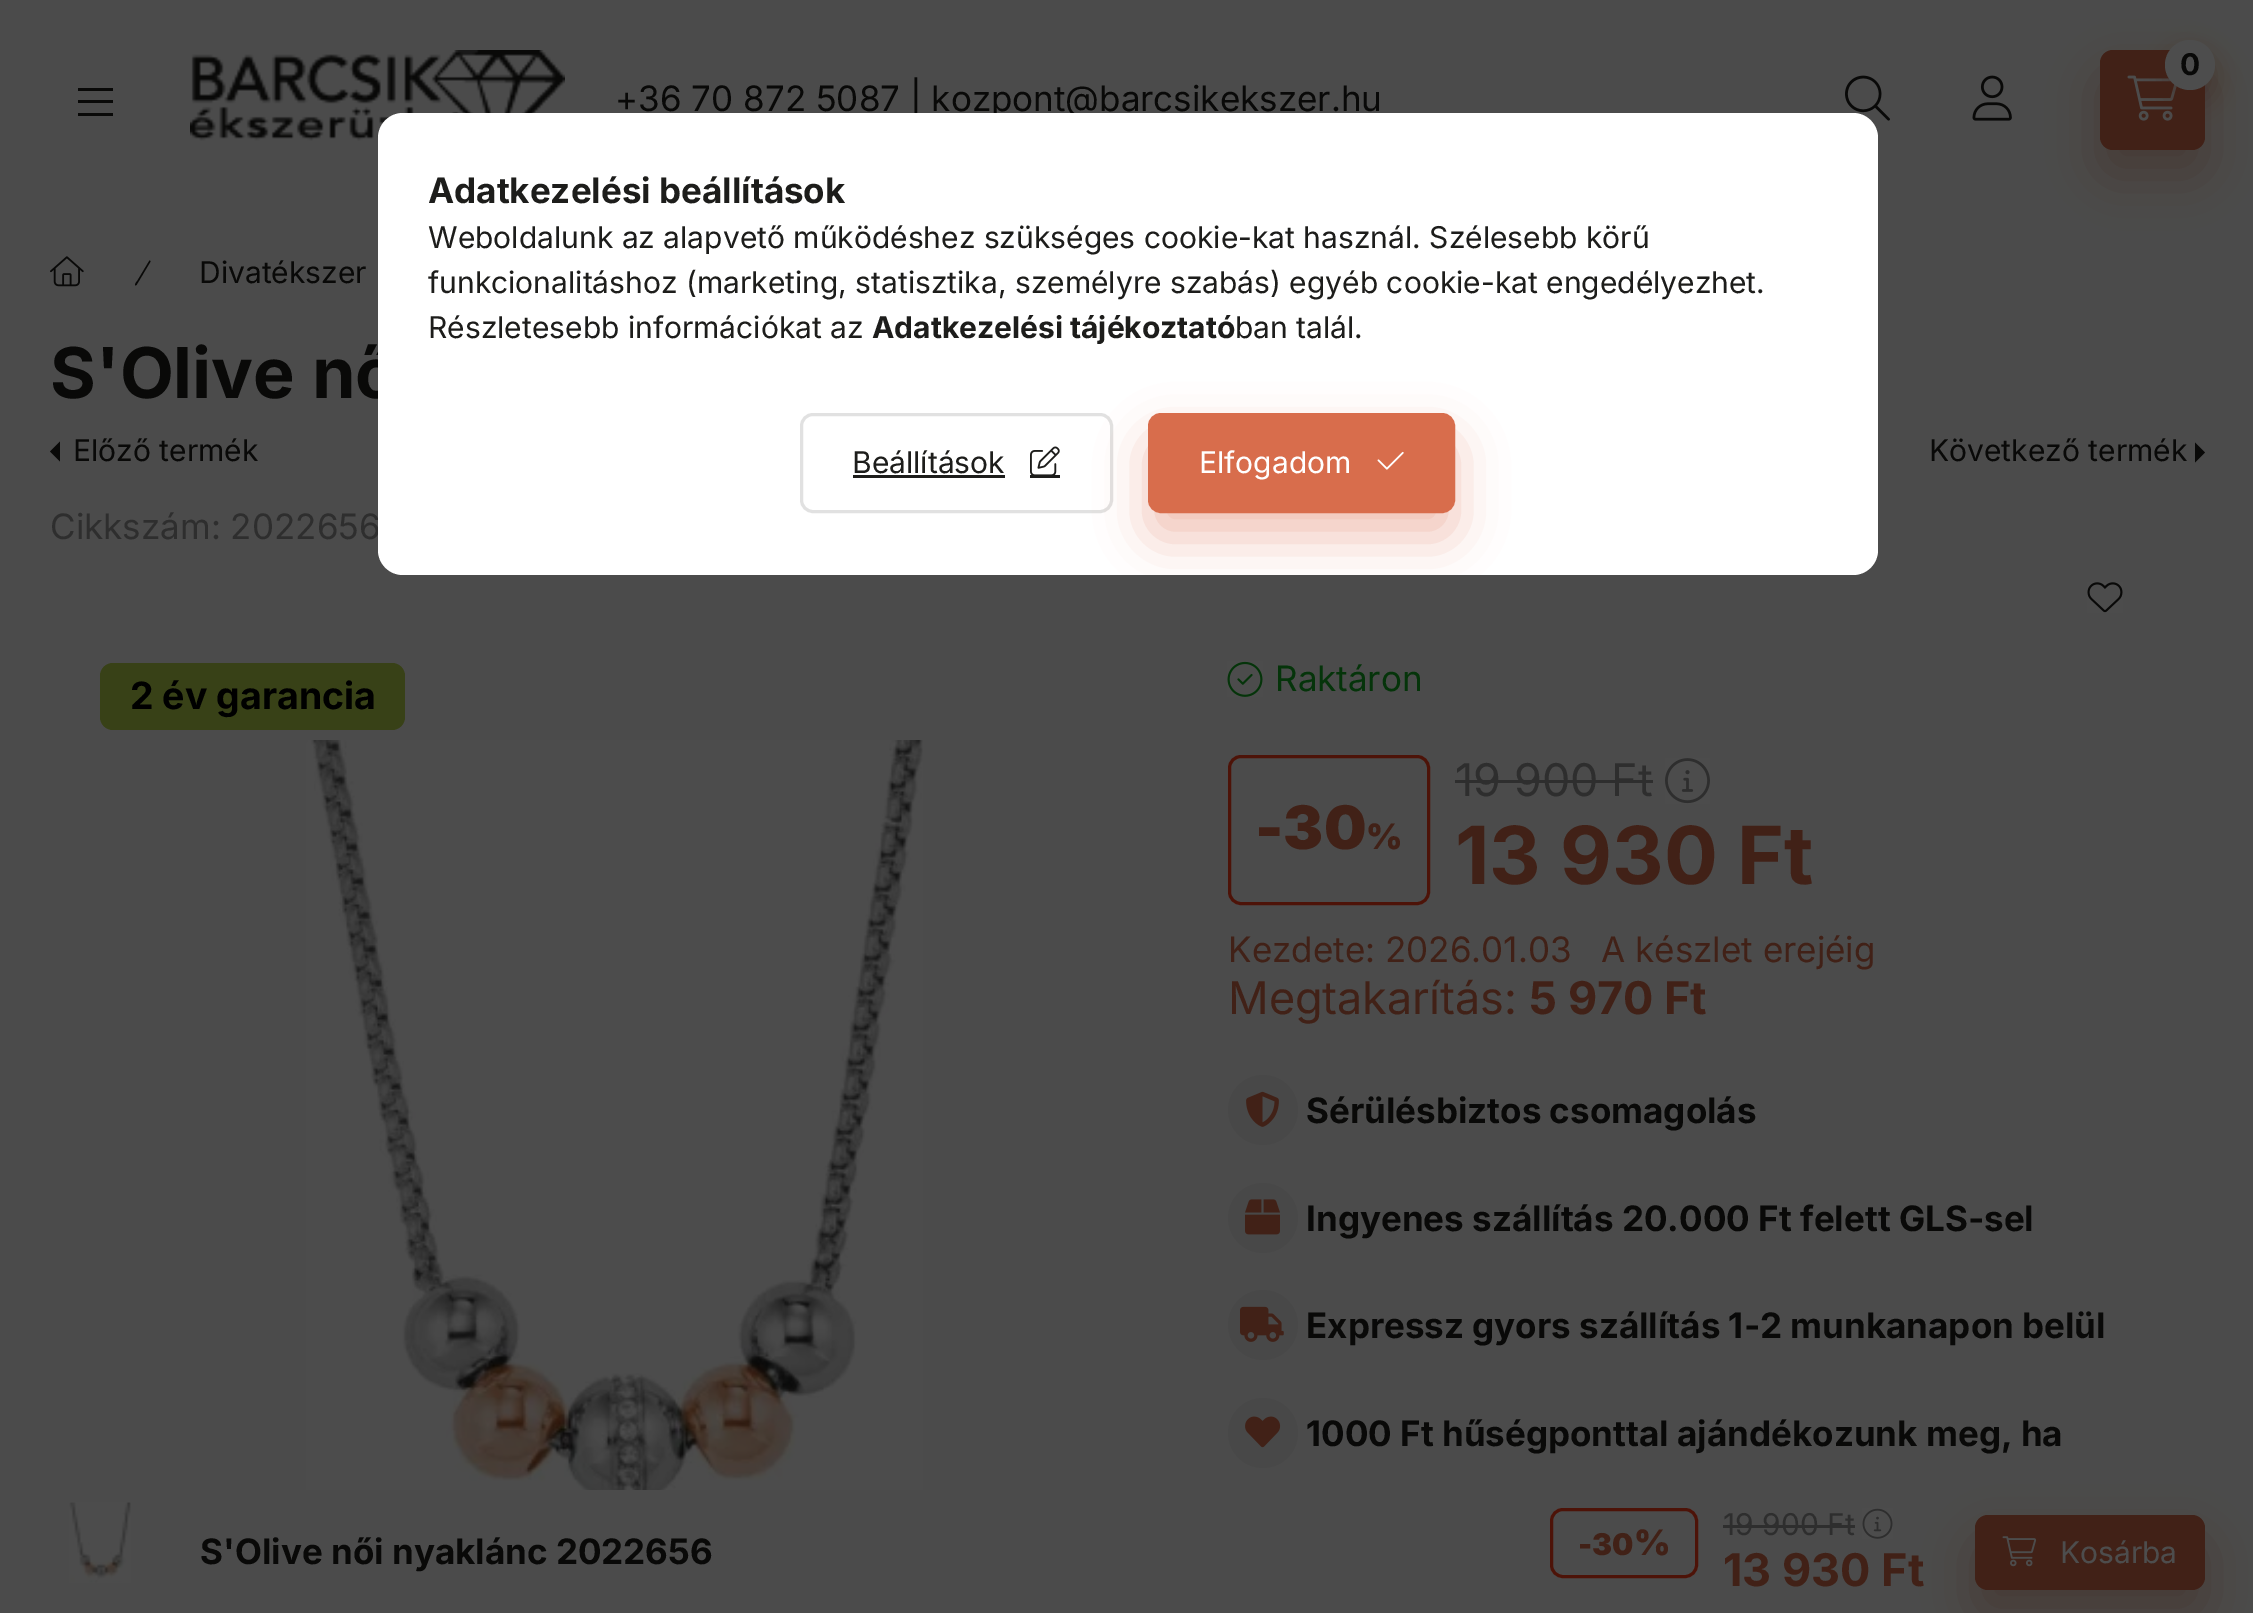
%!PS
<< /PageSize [2253 1613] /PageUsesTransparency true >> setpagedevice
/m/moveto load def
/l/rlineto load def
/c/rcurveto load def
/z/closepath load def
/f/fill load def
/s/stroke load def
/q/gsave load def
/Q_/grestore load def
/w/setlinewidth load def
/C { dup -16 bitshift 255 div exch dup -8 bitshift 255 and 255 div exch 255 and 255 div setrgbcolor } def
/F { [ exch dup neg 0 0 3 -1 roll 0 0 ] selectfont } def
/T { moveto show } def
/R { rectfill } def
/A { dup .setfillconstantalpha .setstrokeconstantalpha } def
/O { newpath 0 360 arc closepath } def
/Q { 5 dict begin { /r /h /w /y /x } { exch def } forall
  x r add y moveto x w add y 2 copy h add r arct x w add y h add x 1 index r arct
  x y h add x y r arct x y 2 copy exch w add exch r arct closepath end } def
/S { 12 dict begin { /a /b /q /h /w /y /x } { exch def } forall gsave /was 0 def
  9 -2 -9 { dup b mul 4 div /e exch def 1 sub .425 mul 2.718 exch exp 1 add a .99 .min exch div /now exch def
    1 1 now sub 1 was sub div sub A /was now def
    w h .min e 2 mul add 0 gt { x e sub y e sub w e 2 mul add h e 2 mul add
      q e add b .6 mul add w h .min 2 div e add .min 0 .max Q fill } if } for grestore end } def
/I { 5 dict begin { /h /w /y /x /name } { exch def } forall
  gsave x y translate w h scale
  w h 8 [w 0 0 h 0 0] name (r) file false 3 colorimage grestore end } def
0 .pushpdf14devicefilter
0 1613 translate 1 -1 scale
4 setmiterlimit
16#4B4B4B C
0 0 2253 1613 R
16#412117 C
2100 75 105 100 13 25 .4 S
2100 50 105 100 13 Q f
(1.rgb) 2127 75 50 46 I
2165 53 50 50 25 12.5 .4 S
16#4D4D4D C
2190 65 25 O f
/Inter-Bold 30 F
16#090908 C
(0) 2180 75 T
(2.rgb) 1845 75 45 46 I
(3.rgb) 1972 75 40 46 I
78 88 35 3 R
78 100 35 3 R
78 113 35 3 R
(4.rgb) 190 50 375 91 I
/Inter-Regular 35 F
(+36 70 872 5087 | kozpont@barcsikekszer.hu) 615 111 T
(5.rgb) 50 256 34 31 I
150 260.5 m -.5 0 l -12 20 l -1 1.5 -3.5 4 -2 5 c 1 -.5 l 14 -23.5 l z f
/Inter-Regular 30 F
(Divatékszer) 199 283 T
/Inter-Bold 70 F
(S'Olive nő) 50 398 T
60 461.5 m 0 -20 l -10 10 l z f
/Inter-Regular 30 F
(Előző termék) 73 461 T
(Következő termék) 1929 461 T
2195 462.5 m 0 -20 l 10 10 l z f
/Inter-Regular 35 F
16#2E2E2E C
(Cikkszám: 2022656) 50 539 T
(6.rgb) 2087 582 36 31 I
16#384117 C
100 663 305 67 13 Q f
/Inter-Bold 37.5 F
16#000000 C
(2 év garancia) 130 709 T
(7.rgb) 306 740 617 750 I
(8.rgb) 1227 661 36 36 I
/Inter-Regular 35 F
16#05340A C
(Raktáron) 1275 691 T
16#4D1308 C
3 w
1229.5 756.5 199 147 11.5 Q s
/Inter-Black 60 F
16#412117 C
(-30) 1255 849 T
/Inter-Black 35 F
(%) 1366 849 T
/Inter-Regular 45 F
16#2E2E2E C
(19 900 Ft) 1455 796 T
1455 780 198 3 R
(9.rgb) 1665 758 45 46 I
/Inter-Bold 80 F
16#412117 C
(13 930 Ft) 1455 884 T
/Inter-Regular 35 F
(Kezdete: 2026.01.03) 1228 962 T
(A készlet erejéig) 1601 962 T
/Inter-Regular 45 F
(Megtakarítás:) 1228 1014 T
/Inter-Bold 45 F
(5 970 Ft) 1529 1014 T
16#484848 C
1263 1110 35 O f
(10.rgb) 1246 1091 33 36 I
/Inter-Bold 35 F
16#090908 C
(Sérülésbiztos csomagolás) 1306 1123 T
16#484848 C
1263 1218 35 O f
(11.rgb) 1245 1199 35 36 I
16#090908 C
(Ingyenes szállítás 20.000 Ft felett GLS-sel) 1306 1231 T
16#484848 C
1263 1325 35 O f
(12.rgb) 1240 1306 44 36 I
16#090908 C
(Expressz gyors szállítás 1-2 munkanapon belül) 1306 1338 T
16#484848 C
1263 1433 35 O f
(13.rgb) 1245 1416 36 32 I
16#090908 C
(1000 Ft hűségponttal ajándékozunk meg, ha) 1306 1446 T
(14.rgb) 69 1502 62 81 I
(S'Olive női nyaklánc 2022656) 200 1564 T
16#4D1308 C
1551.5 1509.5 145 67 11.5 Q s
/Inter-Black 30 F
16#412117 C
(-30) 1578 1555 T
/Inter-Black 35 F
(%) 1634 1555 T
/Inter-Regular 30 F
16#2E2E2E C
(19 900 Ft) 1723 1535 T
1723 1525 132 3 R
(15.rgb) 1862 1508 31 31 I
/Inter-Bold 45 F
16#412117 C
(13 930 Ft) 1723 1586 T
1975 1540 230 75 13 25 .4 S
1975 1515 230 75 13 Q f
(16.rgb) 2002 1536 35 31 I
/Inter-Regular 30 F
16#4D4D4D C
(Kosárba) 2060 1563 T
16#FFFFFF C
378 113 1500 462 25 Q f
/Inter-Bold 35 F
16#1D1D1B C
(Adatkezelési beállítások) 428 203 T
/Inter-Regular 30 F
(Weboldalunk az alapvető működéshez szükséges cookie-kat használ. Szélesebb körű) 428 248 T
(funkcionalitáshoz \(marketing, statisztika, személyre szabás\) egyéb cookie-kat engedélyezhet.) 428 293 T
(Részletesebb információkat az) 428 338 T
/Inter-Bold 30 F
(Adatkezelési tájékoztató) 872 338 T
/Inter-Regular 30 F
(ban talál.) 1235 338 T
16#E1E1E1 C
801.5 414.5 310 97 11.5 Q s
16#1D1D1B C
(Beállítások) 852 473 T
853 475 152 3 R
(17.rgb) 1030 446 30 29 I
1030 475 30 3 R
q
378 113 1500 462 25 Q clip newpath
16#D86D4C C
1148 438 307 100 13 25 .4 S
Q_
16#D86D4C C
1149.5 414.5 304 97 11.5 Q q f Q_
s
16#FFFFFF C
(Elfogadom) 1199 473 T
(18.rgb) 1377 451 27 19 I
.poppdf14devicefilter showpage
